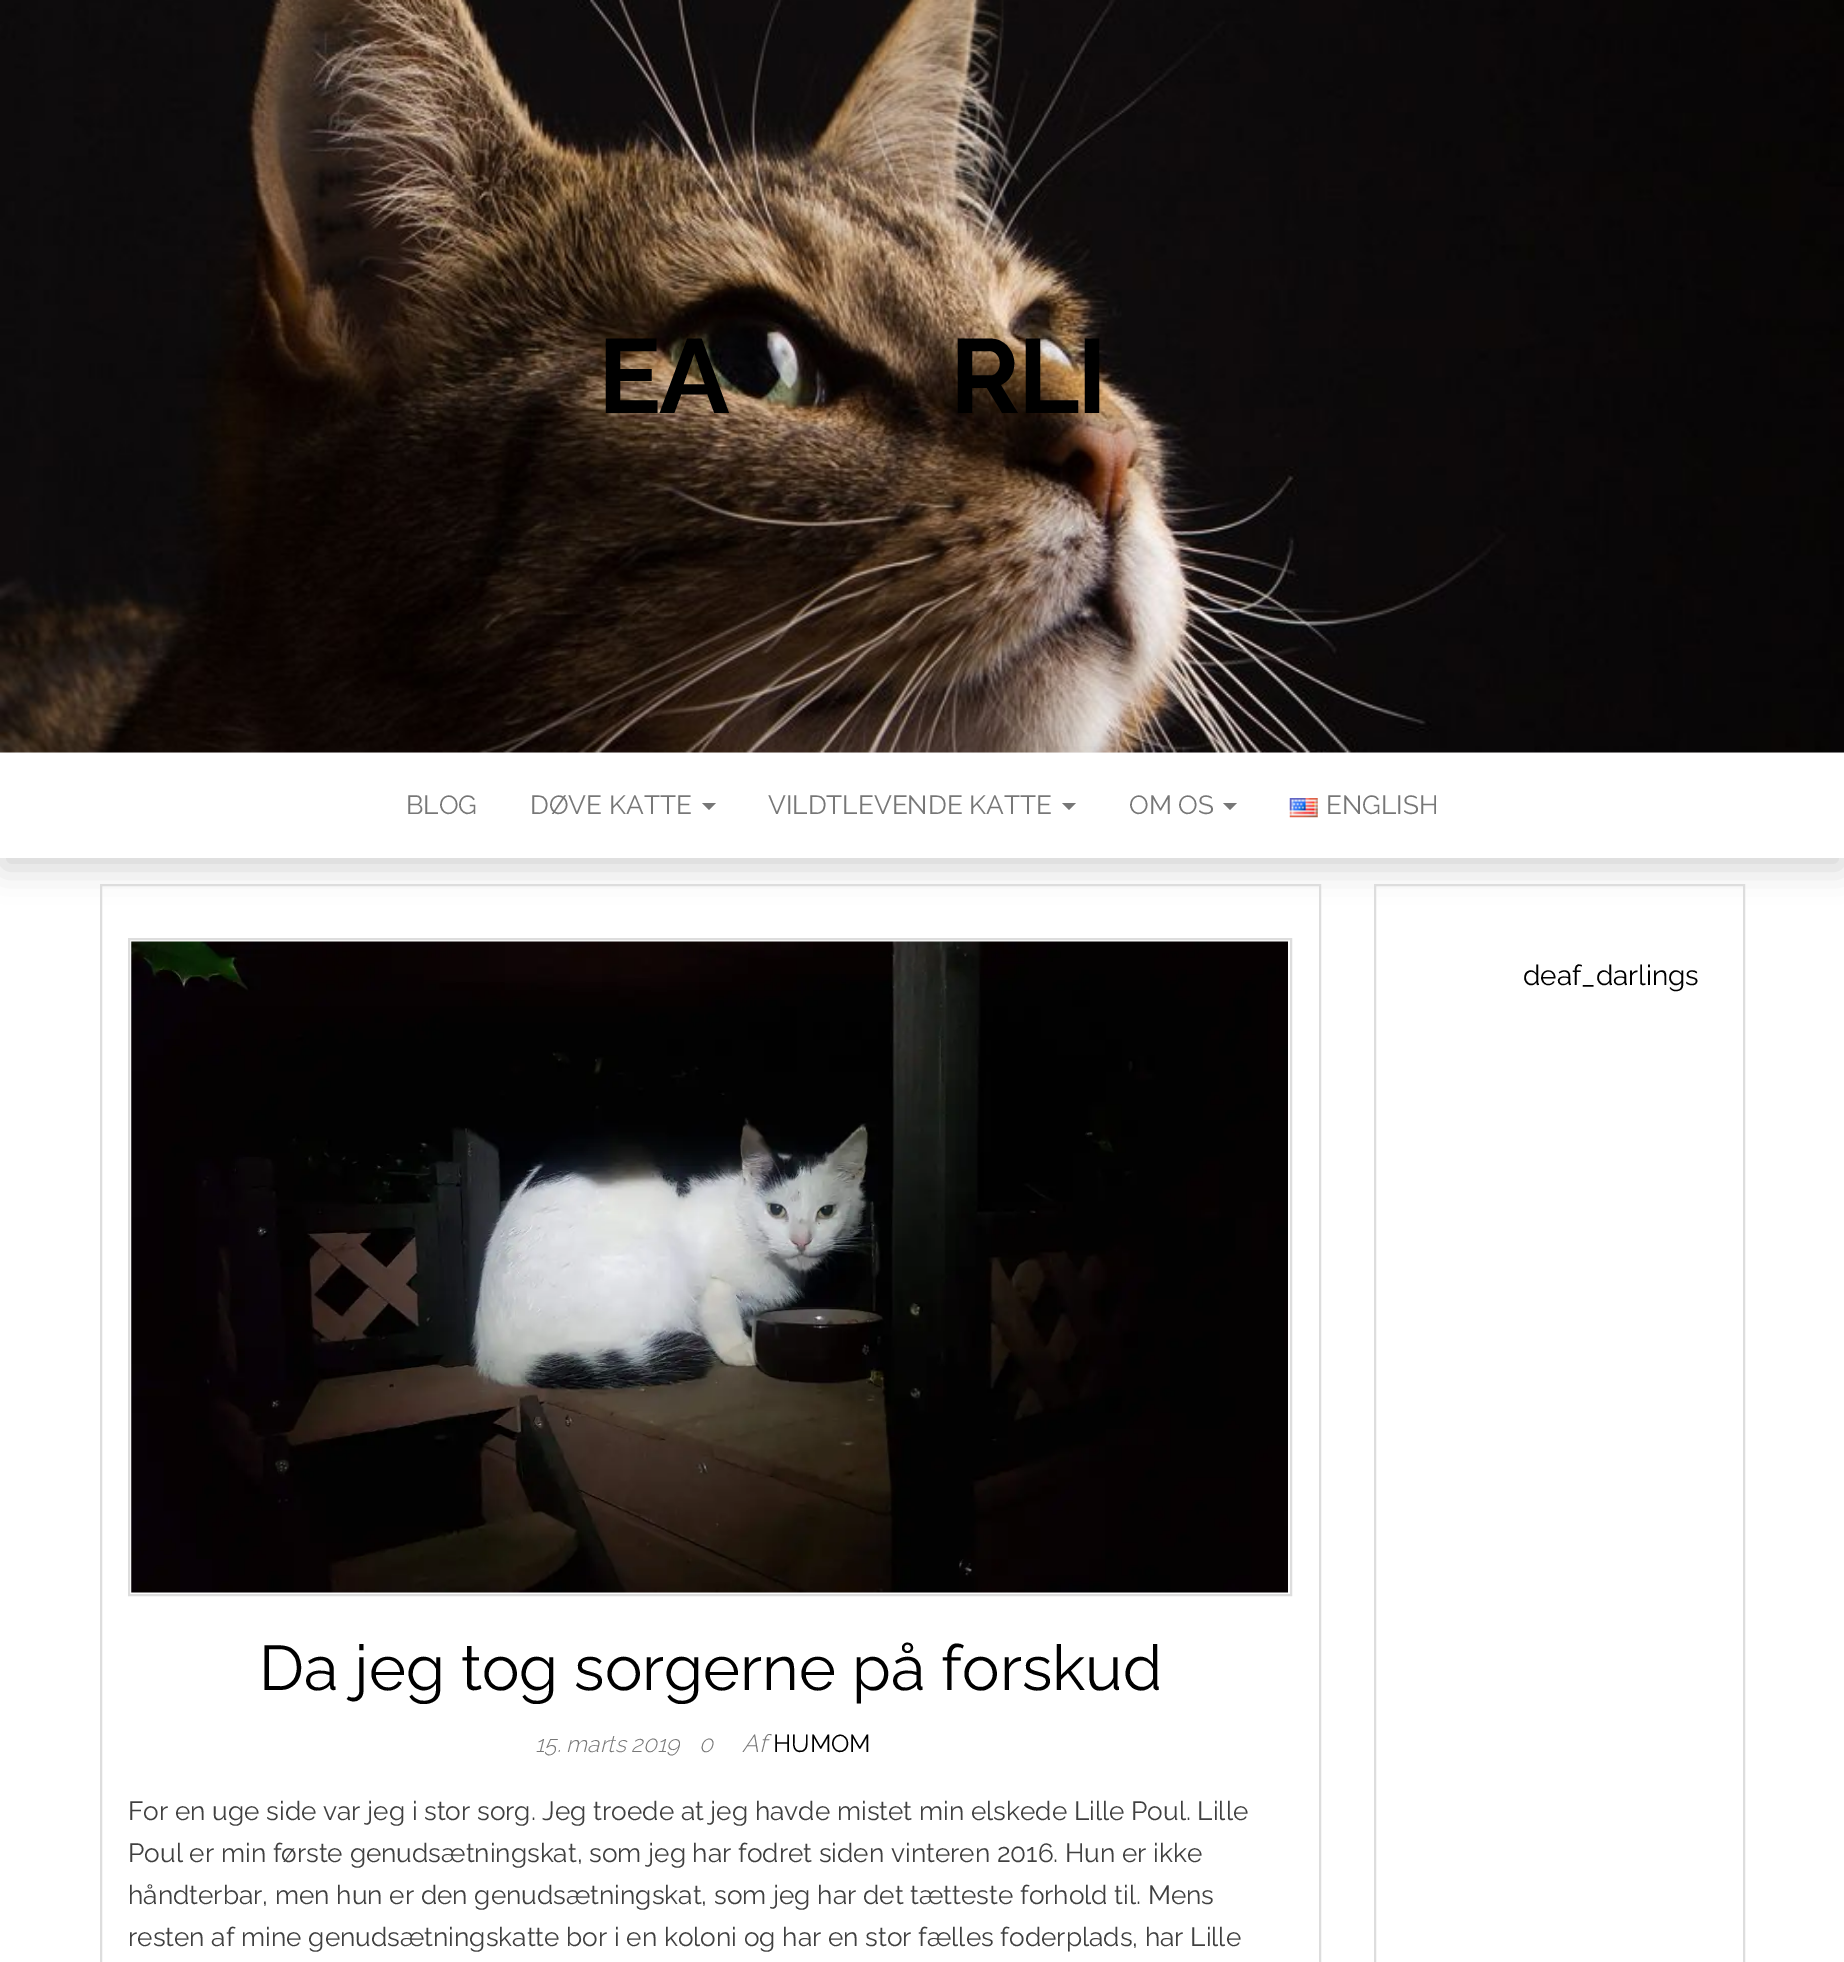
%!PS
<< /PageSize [1844 1962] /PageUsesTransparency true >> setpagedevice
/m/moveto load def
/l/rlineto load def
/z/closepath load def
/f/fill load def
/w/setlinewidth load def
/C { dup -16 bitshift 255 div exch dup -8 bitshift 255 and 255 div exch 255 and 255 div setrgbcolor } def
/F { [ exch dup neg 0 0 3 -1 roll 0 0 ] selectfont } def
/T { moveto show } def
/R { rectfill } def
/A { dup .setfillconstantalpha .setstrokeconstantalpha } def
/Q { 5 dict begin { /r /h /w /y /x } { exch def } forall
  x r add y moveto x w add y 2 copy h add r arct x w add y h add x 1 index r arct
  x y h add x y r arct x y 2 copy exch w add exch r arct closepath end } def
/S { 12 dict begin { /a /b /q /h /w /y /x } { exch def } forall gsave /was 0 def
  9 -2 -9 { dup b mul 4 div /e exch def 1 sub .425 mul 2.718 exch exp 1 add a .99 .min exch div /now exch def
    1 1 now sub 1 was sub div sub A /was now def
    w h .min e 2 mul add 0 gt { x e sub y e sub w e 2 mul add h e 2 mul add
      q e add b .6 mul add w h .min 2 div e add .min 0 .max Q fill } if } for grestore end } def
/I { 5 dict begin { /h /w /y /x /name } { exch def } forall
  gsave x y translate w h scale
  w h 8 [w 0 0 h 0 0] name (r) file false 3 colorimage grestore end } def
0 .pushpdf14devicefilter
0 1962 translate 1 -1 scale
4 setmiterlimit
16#FFFFFF C
0 0 1844 1962 R
(1.rgb) 0 0 1844 753 I
/Raleway-Bold 105 F
16#000000 C
598 413 m -2 0 (EA) ashow
950 413 m -2 0 (RLI) ashow
2 767 1841 101 0 16.5 .17 S
16#FFFFFF C
0 753 1844 105 R
/Raleway-Regular 26.25 F
16#777777 C
(BLOG) 406 814 T
(DØVE KATTE) 530 814 T
702 803 m 14 0 l -7 7 l z f
(VILDTLEVENDE KATTE) 768 814 T
1062 803 m 14 0 l -7 7 l z f
(OM OS) 1129 814 T
1223 803 m 14 0 l -7 7 l z f
(2.rgb) 1289 798 29 20 I
(ENGLISH) 1326 814 T
16#DDDDDD C
2 w
1375 885 369 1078 rectstroke
/Raleway-Regular 28 F
16#000000 C
(deaf_darlings) 1523 985 T
16#DDDDDD C
101 885 1219 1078 rectstroke
129 939 1162 656 rectstroke
(3.rgb) 131 941 1157 652 I
/Raleway-Regular 63 F
16#000000 C
(Da jeg tog sorgerne på forskud) 259 1690 T
/Raleway-LightItalic 22.75 F
16#777777 C
(15. marts 2019) 535 1752 T
(0) 699 1752 T
/Raleway-LightItalic 24.5 F
(Af) 742 1752 T
/Raleway-Regular 24.5 F
16#000000 C
(HUMOM) 773 1752 T
/Raleway-Regular 26.25 F
16#404040 C
(For en uge side var jeg i stor sorg. Jeg troede at jeg havde mistet min elskede Lille Poul. Lille) 128 1820 T
(Poul er min første genudsætningskat, som jeg har fodret siden vinteren 2016. Hun er ikke) 128 1862 T
(håndterbar, men hun er den genudsætningskat, som jeg har det tætteste forhold til. Mens) 128 1904 T
(resten af mine genudsætningskatte bor i en koloni og har en stor fælles foderplads, har Lille) 128 1946 T
.poppdf14devicefilter showpage
